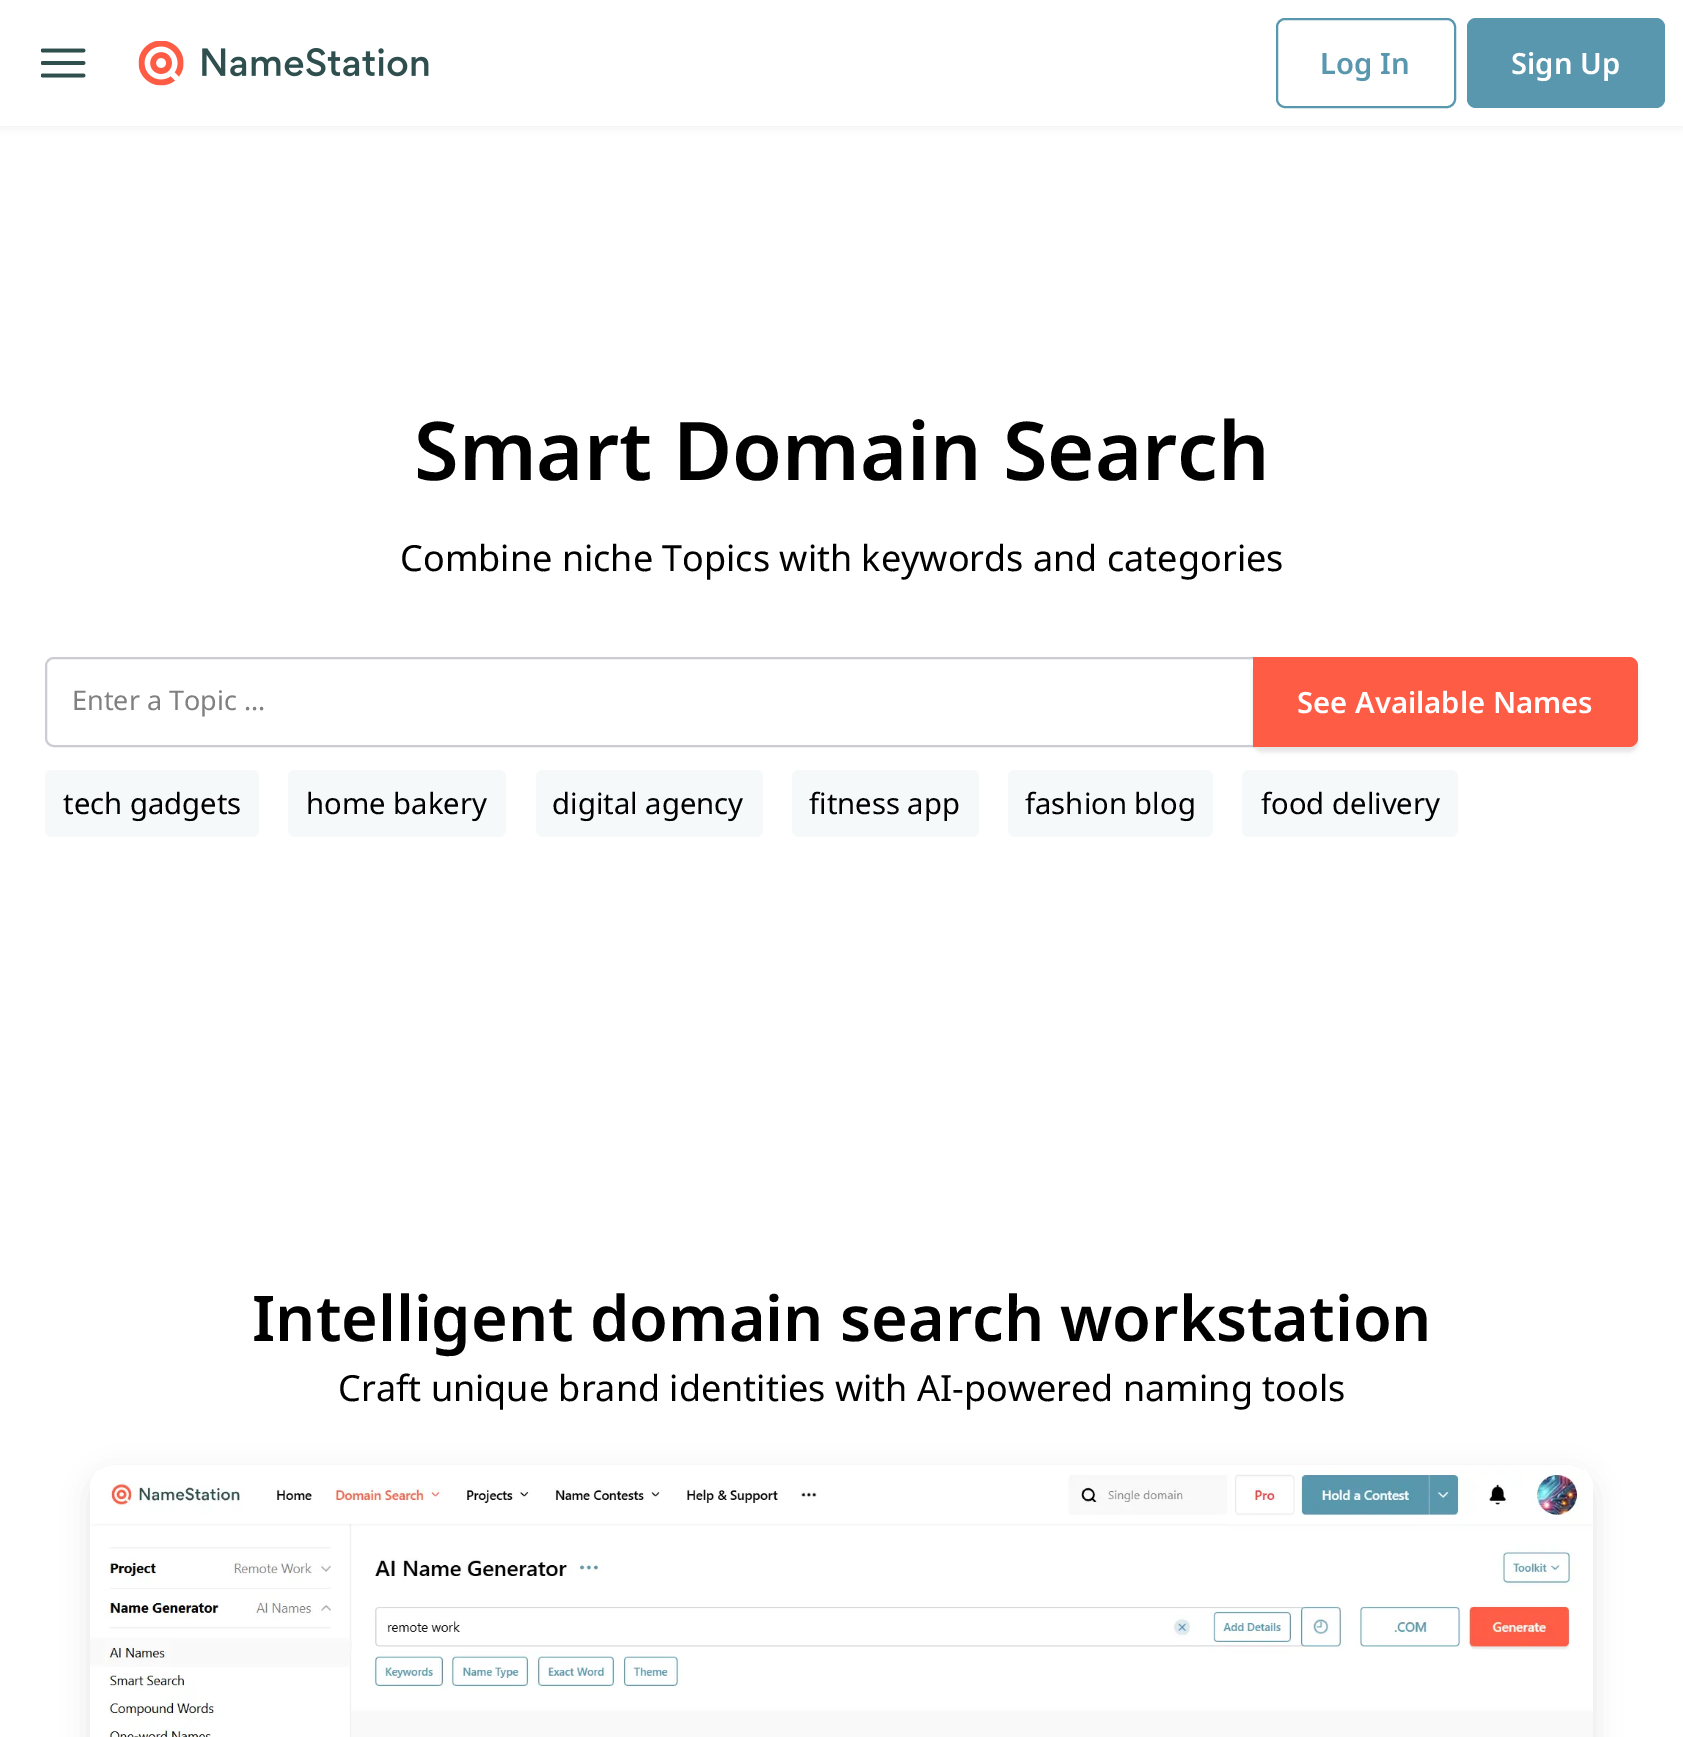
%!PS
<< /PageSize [1683 1737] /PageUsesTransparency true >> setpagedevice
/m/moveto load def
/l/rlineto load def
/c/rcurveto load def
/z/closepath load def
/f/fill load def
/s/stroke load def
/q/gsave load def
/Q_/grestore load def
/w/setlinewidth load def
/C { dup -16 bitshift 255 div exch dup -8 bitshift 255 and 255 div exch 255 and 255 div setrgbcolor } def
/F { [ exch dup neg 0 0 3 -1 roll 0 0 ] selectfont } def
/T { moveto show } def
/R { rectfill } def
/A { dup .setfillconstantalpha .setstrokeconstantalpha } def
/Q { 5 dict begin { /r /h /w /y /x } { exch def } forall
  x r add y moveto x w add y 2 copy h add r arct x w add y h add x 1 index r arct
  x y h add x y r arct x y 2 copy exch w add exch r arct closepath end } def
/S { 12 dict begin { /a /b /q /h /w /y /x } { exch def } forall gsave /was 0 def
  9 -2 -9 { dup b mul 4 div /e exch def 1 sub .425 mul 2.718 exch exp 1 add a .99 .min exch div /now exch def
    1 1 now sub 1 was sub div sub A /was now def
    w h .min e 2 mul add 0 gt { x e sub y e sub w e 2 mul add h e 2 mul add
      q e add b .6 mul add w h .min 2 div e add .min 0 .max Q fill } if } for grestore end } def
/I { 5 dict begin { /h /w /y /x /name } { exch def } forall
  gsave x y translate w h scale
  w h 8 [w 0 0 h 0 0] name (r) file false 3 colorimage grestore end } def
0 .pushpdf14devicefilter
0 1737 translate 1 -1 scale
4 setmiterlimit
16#FFFFFF C
0 0 1683 1737 R
16#000000 C
0 2 1683 126 0 4.5 .05 S
16#FFFFFF C
0 0 1683 126 R
(1.rgb) 41 48 45 30 I
(2.rgb) 138 41 291 45 I
16#5897AE C
2 w
1277 19 178 88 8 Q s
/NotoSans-SemiBold 29.25 F
(Log In) 1320 74 T
1467 18 198 90 9 Q f
16#FFFFFF C
(Sign Up) 1511 74 T
/NotoSans-SemiBold 81 F
16#000000 C
(Smart Domain Search) 414 480 T
/NotoSans-Regular 36 F
(Combine niche Topics with keywords and categories) 400 571 T
16#CCCCD5 C
54 658 m 1201 0 l 0 88 l -1201 0 l -4.5 0 -8 -3.5 -8 -8 c 0 -72 l 0 -4.5 3.5 -8 8 -8 c z s
/NotoSans-Regular 27 F
16#808080 C
(Enter a Topic ...) 72 710 T
16#000000 C
1253 662 385 90 9 2 .1 S
16#FF5C45 C
1253 657 m 376 0 l 5 0 9 4 9 9 c 0 72 l 0 5 -4 9 -9 9 c -376 0 l z f
/NotoSans-SemiBold 29.25 F
16#FFFFFF C
(See Available Names) 1297 713 T
16#F5F9FA C
45 770 214 67 7 Q f
/NotoSans-Regular 29.25 F
16#000000 C
(tech gadgets) 63 814 T
16#F5F9FA C
288 770 218 67 7 Q f
16#000000 C
(home bakery) 306 814 T
16#F5F9FA C
536 770 227 67 7 Q f
16#000000 C
(digital agency) 552 814 T
16#F5F9FA C
792 770 187 67 7 Q f
16#000000 C
(fitness app) 809 814 T
16#F5F9FA C
1008 770 205 67 7 Q f
16#000000 C
(fashion blog) 1025 814 T
16#F5F9FA C
1242 770 216 67 7 Q f
16#000000 C
(food delivery) 1261 814 T
/NotoSans-SemiBold 63 F
(Intelligent domain search workstation) 252 1341 T
/NotoSans-Regular 36 F
(Craft unique brand identities with AI-powered naming tools) 338 1401 T
q
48 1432 m 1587 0 l 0 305 l -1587 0 l z 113 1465 m 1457 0 l 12.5 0 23 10.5 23 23 c 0 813 l 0 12.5 -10.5 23 -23 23 c -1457 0 l -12.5 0 -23 -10.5 -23 -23 c 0 -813 l 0 -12.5 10.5 -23 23 -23 c z eoclip newpath
90 1474 1503 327 23 13.5 .1 S
Q_
(3.rgb) 90 1470 1503 267 I
.poppdf14devicefilter showpage
